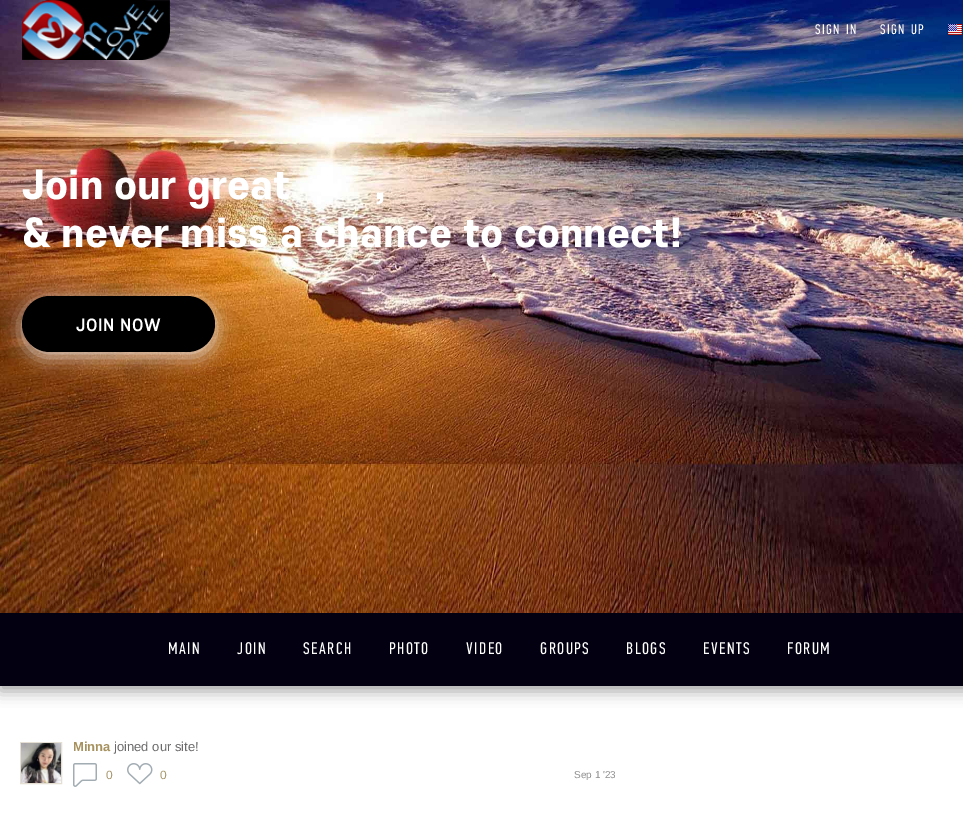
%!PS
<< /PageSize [963 819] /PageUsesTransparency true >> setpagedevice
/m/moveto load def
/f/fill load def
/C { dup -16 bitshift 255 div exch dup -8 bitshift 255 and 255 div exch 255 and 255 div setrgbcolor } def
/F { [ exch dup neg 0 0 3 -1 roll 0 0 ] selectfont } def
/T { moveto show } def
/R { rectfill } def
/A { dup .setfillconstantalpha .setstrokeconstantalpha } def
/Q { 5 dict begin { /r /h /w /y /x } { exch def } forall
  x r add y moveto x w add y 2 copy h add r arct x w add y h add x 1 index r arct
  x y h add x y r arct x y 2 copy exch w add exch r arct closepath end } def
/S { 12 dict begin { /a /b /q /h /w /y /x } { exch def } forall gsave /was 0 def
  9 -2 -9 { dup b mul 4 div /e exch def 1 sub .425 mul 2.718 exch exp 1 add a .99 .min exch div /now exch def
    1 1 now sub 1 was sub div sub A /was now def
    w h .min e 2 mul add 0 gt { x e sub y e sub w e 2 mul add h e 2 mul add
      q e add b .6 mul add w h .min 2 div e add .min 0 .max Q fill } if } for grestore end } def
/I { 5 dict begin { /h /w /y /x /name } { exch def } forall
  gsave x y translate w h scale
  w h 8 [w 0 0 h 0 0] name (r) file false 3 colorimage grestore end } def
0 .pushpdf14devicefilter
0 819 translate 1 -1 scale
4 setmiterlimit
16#FFFFFF C
0 0 963 819 R
16#000000 C
0 618 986 73 0 7.5 .35 S
(3.rgb) 0 0 963 613 I
(1.rgb) 22 0 148 60 I
/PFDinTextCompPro-Regular 14 F
16#FFFFFF C
815 34 m 1.5 0 (SIGN IN) ashow
880 34 m 1.5 0 (SIGN UP) ashow
(2.rgb) 947 24 16 13 I
/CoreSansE-ExtraBold 42 F
(Join our great) 22 199 T
(,) 374 199 T
(& never miss a chance to connect!) 22 247 T
16#F3F0F1 C
23 301 193 56 28 10 .8 S
16#000000 C
22 296 193 56 28 Q f
/CoreSansE-Bold 17 F
16#FFFFFF C
76 331 m 1 0 (JOIN NOW) ashow
16#030011 C
0 613 963 73 R
/PFDinTextCompPro-Regular 17 F
16#FFFFFF C
168 654 m 1.5 0 (MAIN) ashow
237 654 m 1.5 0 (JOIN) ashow
303 654 m 1.5 0 (SEARCH) ashow
389 654 m 1.5 0 (PHOTO) ashow
466 654 m 1.5 0 (VIDEO) ashow
540 654 m 1.5 0 (GROUPS) ashow
626 654 m 1.5 0 (BLOGS) ashow
703 654 m 1.5 0 (EVENTS) ashow
787 654 m 1.5 0 (FORUM) ashow
16#E4DFD2 C
20.5 742.5 41 41 rectstroke
(4.rgb) 21 743 40 40 I
/LiberationSans-Bold 13 F
16#A7915E C
(Minna) 73 751 T
/LiberationSans-Regular 13 F
16#6C6A6A C
(joined our site!) 114 751 T
(5.rgb) 73 763 24 24 I
/LiberationSans-Regular 12 F
16#A7966D C
(0) 106 779 T
(6.rgb) 127 763 26 22 I
(0) 160 779 T
/LiberationSans-Regular 10 F
16#8E8D8D C
(Sep 1 '23) 574 778 T
.poppdf14devicefilter showpage
